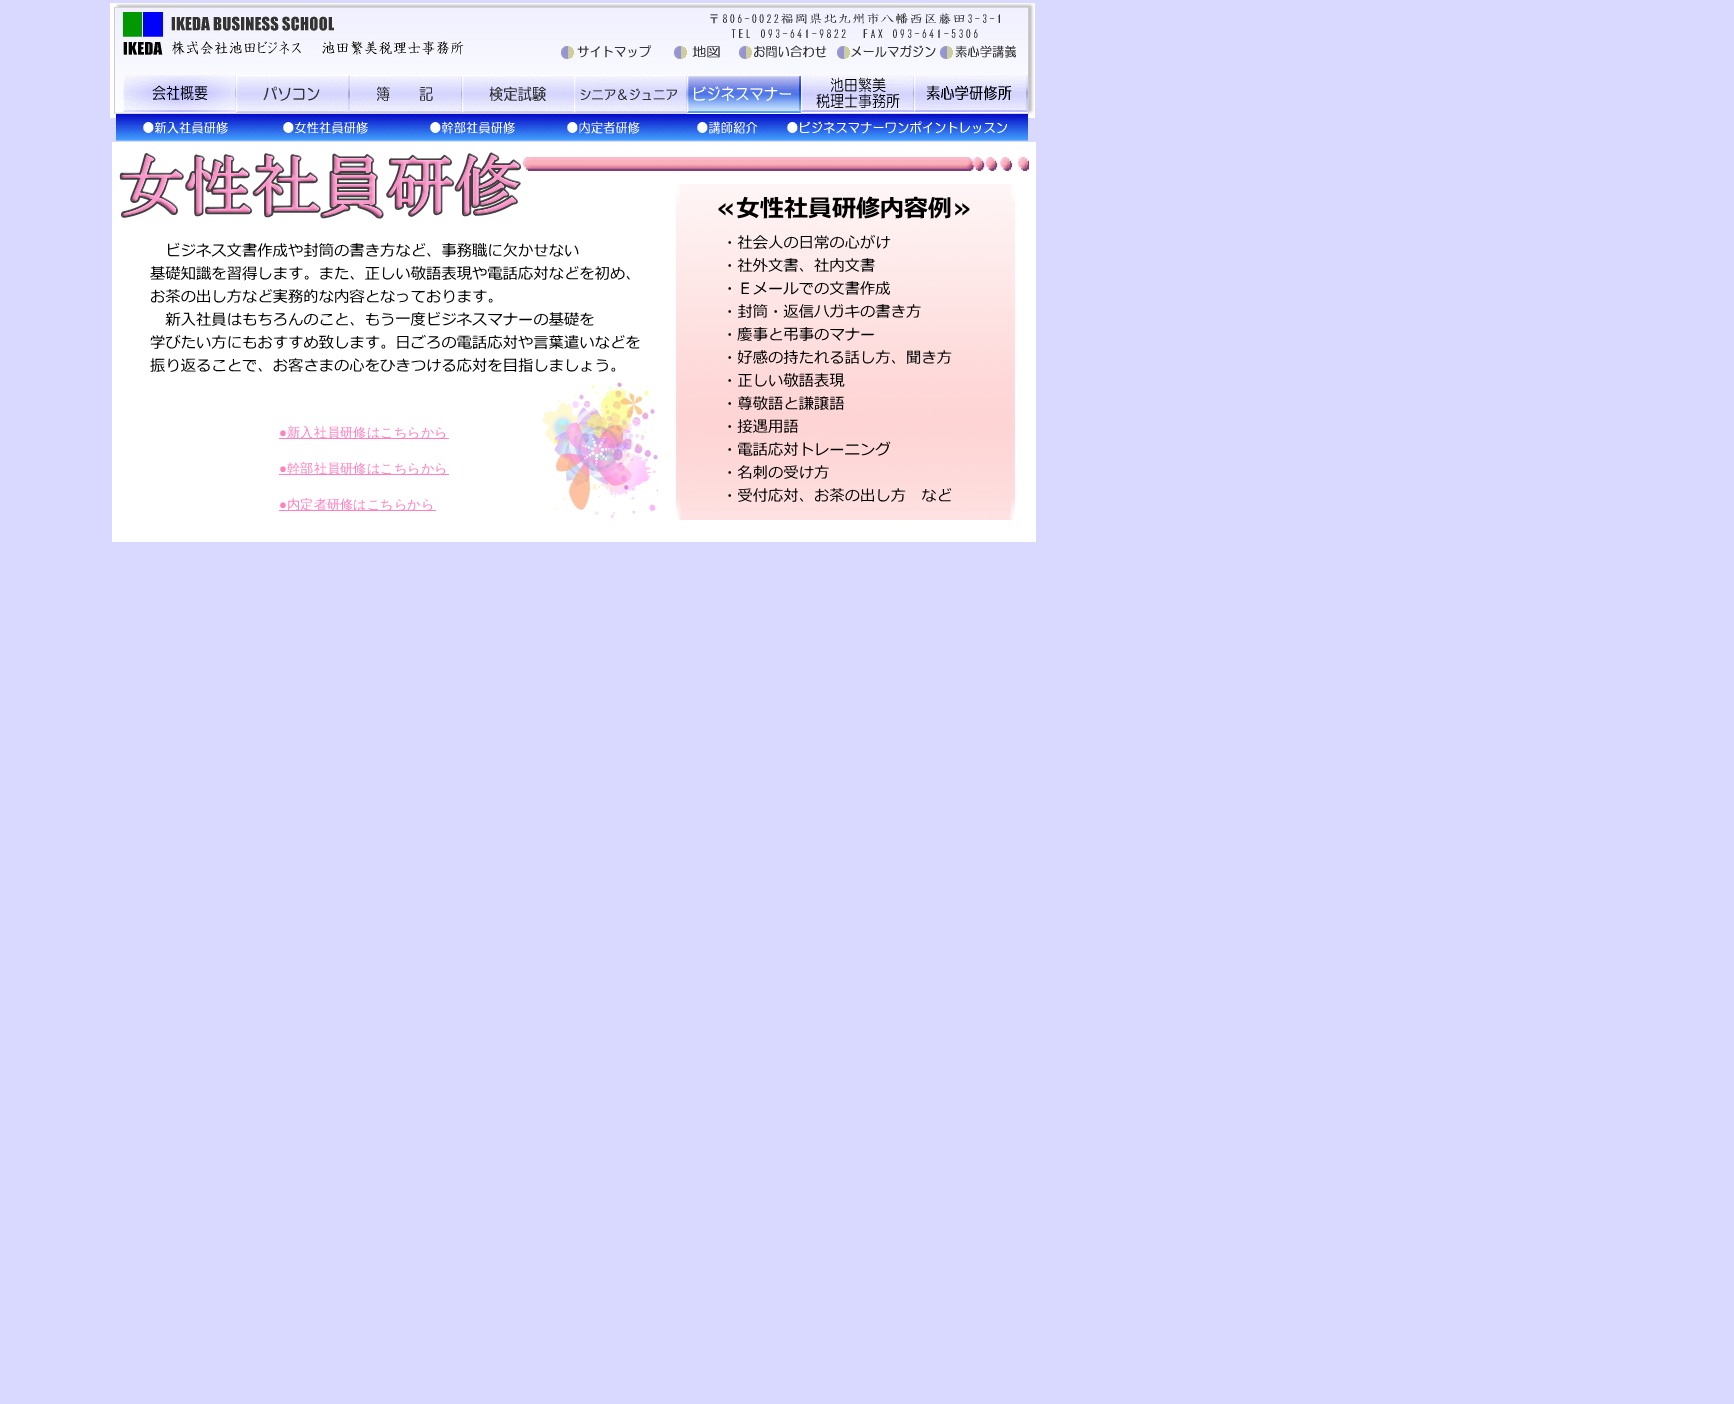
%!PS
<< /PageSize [1734 1404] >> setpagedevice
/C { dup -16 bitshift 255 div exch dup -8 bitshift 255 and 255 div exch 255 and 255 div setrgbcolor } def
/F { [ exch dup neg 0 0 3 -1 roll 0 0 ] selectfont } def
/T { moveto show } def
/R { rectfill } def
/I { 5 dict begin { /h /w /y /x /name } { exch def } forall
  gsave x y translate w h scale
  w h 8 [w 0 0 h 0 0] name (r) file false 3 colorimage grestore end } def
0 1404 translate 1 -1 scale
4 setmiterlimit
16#D9D9FF C
0 0 1734 1404 R
(1.rgb) 110 3 925 115 I
(2.rgb) 123 75 113 37 I
(3.rgb) 236 75 114 38 I
(4.rgb) 350 75 112 38 I
(5.rgb) 462 75 112 38 I
(6.rgb) 574 75 114 38 I
(7.rgb) 687 76 114 38 I
(8.rgb) 801 75 113 38 I
(9.rgb) 914 75 114 38 I
(10.rgb) 116 114 912 27 I
(11.rgb) 112 142 924 400 I
/LiberationSerif-Regular 13.25 F
16#FF80C0 C
(●) 279 437 T
279 438 170 1 R
/WenQuanYiZenHei-Medium 13.25 F
(新入社員研修はこちらから) 287 437 T
/LiberationSerif-Regular 13.25 F
(●) 279 473 T
279 474 170 1 R
/WenQuanYiZenHei-Medium 13.25 F
(幹部社員研修はこちらから) 287 473 T
/LiberationSerif-Regular 13.25 F
(●) 279 509 T
279 510 157 1 R
/WenQuanYiZenHei-Medium 13.25 F
(内定者研修はこちらから) 287 509 T
showpage
